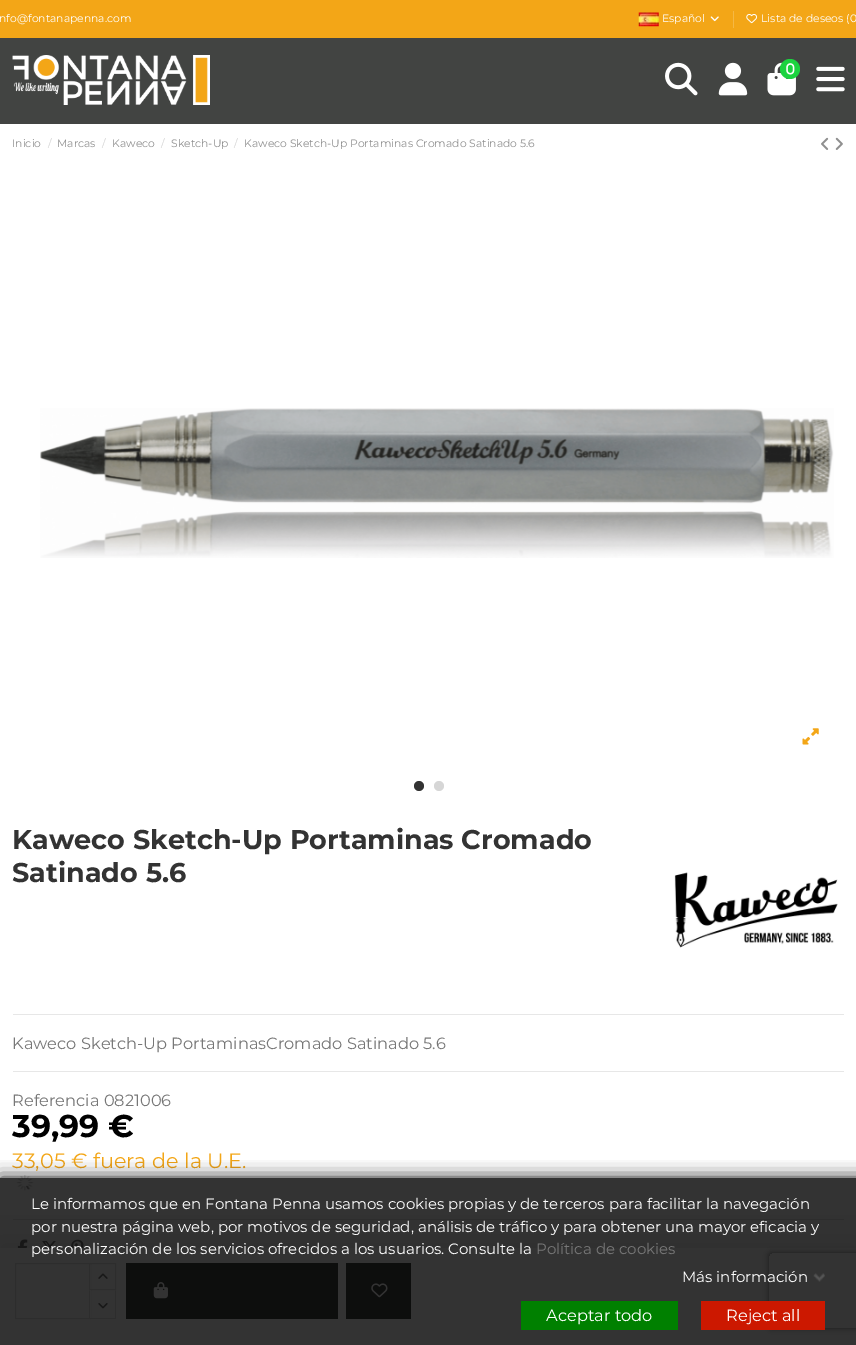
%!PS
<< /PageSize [856 1345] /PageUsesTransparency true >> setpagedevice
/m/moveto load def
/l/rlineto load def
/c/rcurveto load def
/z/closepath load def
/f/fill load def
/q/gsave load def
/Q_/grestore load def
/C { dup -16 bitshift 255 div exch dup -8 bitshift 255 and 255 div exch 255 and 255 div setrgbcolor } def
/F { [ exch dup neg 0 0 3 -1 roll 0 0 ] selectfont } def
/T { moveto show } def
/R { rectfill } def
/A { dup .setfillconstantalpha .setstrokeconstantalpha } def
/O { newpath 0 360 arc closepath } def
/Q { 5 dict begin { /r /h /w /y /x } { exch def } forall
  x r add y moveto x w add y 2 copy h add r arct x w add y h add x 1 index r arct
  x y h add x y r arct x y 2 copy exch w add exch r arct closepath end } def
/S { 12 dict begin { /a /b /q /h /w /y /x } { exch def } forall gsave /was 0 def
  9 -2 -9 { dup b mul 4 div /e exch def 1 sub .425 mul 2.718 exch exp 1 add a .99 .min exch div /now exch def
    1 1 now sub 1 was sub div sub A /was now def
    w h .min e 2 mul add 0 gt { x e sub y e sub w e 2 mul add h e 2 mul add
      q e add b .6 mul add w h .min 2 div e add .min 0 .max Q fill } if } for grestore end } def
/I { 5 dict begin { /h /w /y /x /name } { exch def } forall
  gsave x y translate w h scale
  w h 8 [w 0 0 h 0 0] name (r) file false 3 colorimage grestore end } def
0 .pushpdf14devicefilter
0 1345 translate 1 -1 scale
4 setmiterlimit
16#FFFFFF C
0 0 856 1345 R
16#424442 C
0 38 856 86 R
16#F3A617 C
0 0 856 38 R
/Montserrat-Regular 10.8 F
16#FFFFFF C
(nfo@fontanapenna.com) -1 22 T
(1.rgb) 638 12 21 15 I
(Español) 662 22 T
(2.rgb) 710 16 9 6 I
16#F5B845 C
733 11 1 17 R
(3.rgb) 746 14 12 10 I
16#FFFFFF C
(Lista de deseos \(0) 761 22 T
(4.rgb) 12 55 198 50 I
(5.rgb) 665 62 33 34 I
(6.rgb) 718 62 30 34 I
(8.rgb) 767 62 29 34 I
16#1BD33F C
790 69 10 O f
(7.rgb) 786 63 9 12 I
(9.rgb) 816 66 29 26 I
16#8F8F8F C
(Inicio) 12 147 T
16#D2D2D2 C
(/) 48 147 T
16#8F8F8F C
(Marcas) 57 147 T
16#D2D2D2 C
(/) 102 147 T
16#8F8F8F C
(Kaweco) 112 147 T
16#D2D2D2 C
(/) 161 147 T
16#8F8F8F C
(Sketch-Up) 171 147 T
16#D2D2D2 C
(/) 234 147 T
16#8F8F8F C
(Kaweco Sketch-Up Portaminas Cromado Satinado 5.6) 244 147 T
(10.rgb) 821 137 8 13 I
(11.rgb) 835 137 8 13 I
(12.rgb) 40 408 794 150 I
(13.rgb) 802 728 17 17 I
16#333333 C
419 786 5 O f
16#D6D6D6 C
439 786 5 O f
16#E7E7E7 C
13 1014 831 1 R
/Montserrat-Bold 27.1 F
16#333333 C
(Kaweco Sketch-Up Portaminas Cromado) 12 849 T
(Satinado 5.6) 12 882 T
(14.rgb) 674 872 164 76 I
/Montserrat-Regular 16.25 F
16#777777 C
(Kaweco Sketch-Up PortaminasCromado Satinado 5.6) 12 1049 T
16#E7E7E7 C
13 1071 831 1 R
16#777777 C
(Referencia 0821006) 12 1106 T
/Montserrat-Bold 31.5 F
16#000000 C
(39,99 €) 12 1137 T
/Montserrat-Regular 20.75 F
16#F3A617 C
(33,05 € fuera de la U.E.) 12 1168 T
(15.rgb) 16 1175 18 16 I
16#E7E7E7 C
13 1219 831 1 R
(20.rgb) 17 1239 11 9 I
(21.rgb) 42 1241 14 7 I
(22.rgb) 71 1239 13 9 I
16#000000 C
-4 1239 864 105 0 19 .09 S
16#FFFFFF C
0 1248 856 97 R
16#E3E3E3 C
15.5 1263.5 75 55 rectstroke
16#FFFFFF C
90 1264 1 25 R
16#E3E3E3 C
89.5 1263.5 26 26 rectstroke
(16.rgb) 98 1273 10 6 I
16#FFFFFF C
90 1290 1 28 R
16#E3E3E3 C
116 1290 m 0 29 l -1 -1.5 l 0 -26.5 l z f
89 1318 27 1 R
89 1319 m 0 -29 l 1 1 l 0 26.5 l z f
(17.rgb) 98 1303 10 6 I
16#424442 C
126 1263 212 56 R
(18.rgb) 153 1282 15 17 I
346 1263 65 56 R
(19.rgb) 371 1283 17 15 I
q
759 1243 m 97 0 l 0 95 l -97 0 l z 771.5 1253 m 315 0 l 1.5 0 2.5 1 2.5 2.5 c 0 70 l 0 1.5 -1 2.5 -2.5 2.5 c -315 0 l -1.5 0 -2.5 -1 -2.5 -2.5 c 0 -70 l 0 -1.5 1 -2.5 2.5 -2.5 c z eoclip newpath
16#808080 C
769 1253 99 75 2.5 3 1 S
Q_
q
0 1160 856 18 rectclip
16#121212 C
0 1178 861 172 0 9 1 S
Q_
0.8 A
16#000000 C
0 1178 856 167 R
/Montserrat-Regular 15 F
1 A
16#FFFFFF C
(Le informamos que en Fontana Penna usamos cookies propias y de terceros para facilitar la navegación) 31 1209 T
(por nuestra página web, por motivos de seguridad, análisis de tráfico y para obtener una mayor eficacia y) 31 1232 T
(personalización de los servicios ofrecidos a los usuarios. Consulte la) 31 1254 T
16#777777 C
(Política de cookies) 536 1254 T
16#FFFFFF C
(Más información) 682 1282 T
(23.rgb) 813 1273 12 9 I
16#008000 C
521 1301 157 29 R
/Montserrat-Regular 16.25 F
16#FFFFFF C
(Aceptar todo) 546 1321 T
16#CC1800 C
701 1301 124 29 R
16#FFFFFF C
(Reject all) 726 1321 T
.poppdf14devicefilter showpage
